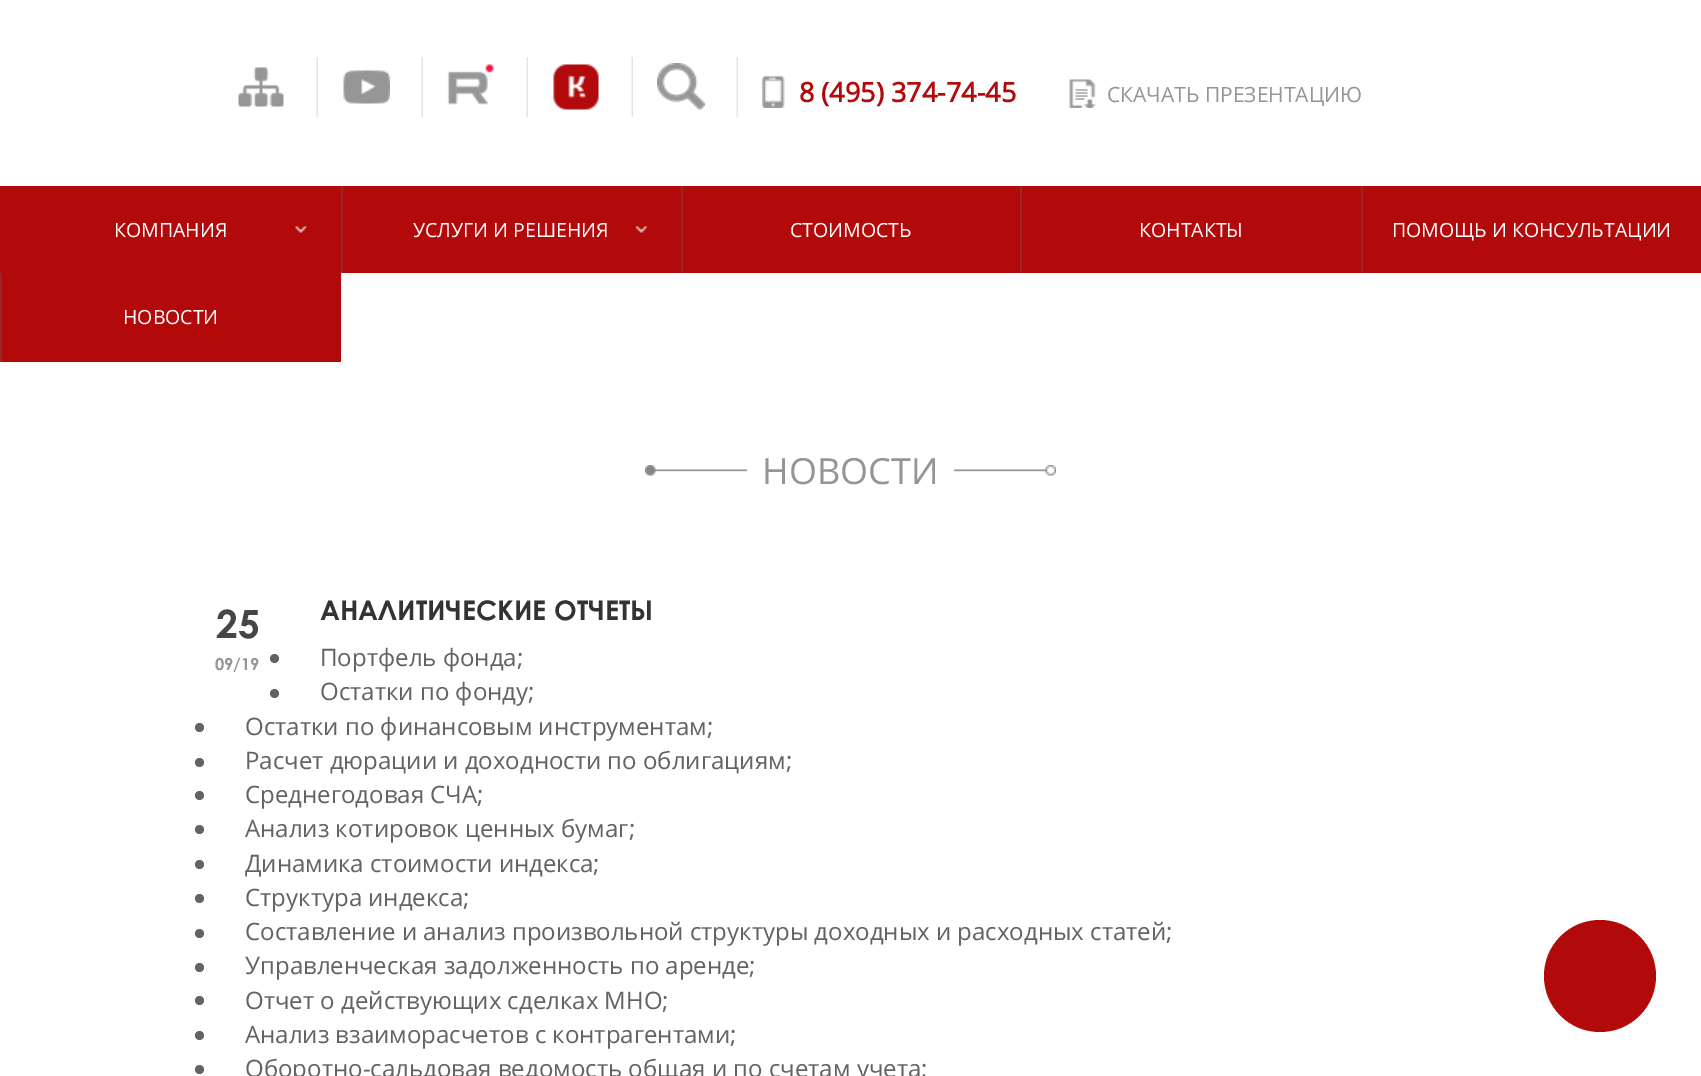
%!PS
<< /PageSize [1701 1076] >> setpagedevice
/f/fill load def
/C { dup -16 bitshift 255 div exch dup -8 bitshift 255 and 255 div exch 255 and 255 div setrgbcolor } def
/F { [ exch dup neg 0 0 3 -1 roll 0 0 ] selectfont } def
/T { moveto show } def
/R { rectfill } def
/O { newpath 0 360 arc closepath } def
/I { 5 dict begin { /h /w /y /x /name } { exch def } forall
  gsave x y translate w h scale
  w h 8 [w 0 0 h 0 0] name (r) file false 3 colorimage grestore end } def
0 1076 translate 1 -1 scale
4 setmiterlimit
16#FFFFFF C
0 0 1701 1076 R
(1.rgb) 316 57 2 60 I
(2.rgb) 238 67 46 40 I
(1.rgb) 421 57 2 60 I
(3.rgb) 343 70 47 34 I
(1.rgb) 526 57 2 60 I
(4.rgb) 447 63 47 42 I
(1.rgb) 631 57 2 60 I
(5.rgb) 553 64 46 46 I
(1.rgb) 736 57 2 60 I
(6.rgb) 657 63 48 47 I
(7.rgb) 762 75 23 33 I
/OpenSans-Bold 27 F
16#B20A0B C
(8 \(495\) 374-74-45) 799 102 T
(8.rgb) 1069 79 27 29 I
/OpenSans-Regular 21 F
16#959595 C
(СКАЧАТЬ ПРЕЗЕНТАЦИЮ) 1107 102 T
16#B20A0B C
0 186 341 87 R
(9.rgb) 295 225 12 8 I
/OpenSans-Regular 19.5 F
16#FFFFFF C
(КОМПАНИЯ) 114 237 T
16#B20A0B C
343 186 338 87 R
(10.rgb) 635 225 12 8 I
16#9A2728 C
341 186 2 87 R
16#FFFFFF C
(УСЛУГИ И РЕШЕНИЯ) 413 237 T
16#B20A0B C
683 186 337 87 R
16#9A2728 C
681 186 2 87 R
16#FFFFFF C
(СТОИМОСТЬ) 790 237 T
16#B20A0B C
1022 186 339 87 R
16#9A2728 C
1020 186 2 87 R
16#FFFFFF C
(КОНТАКТЫ) 1139 237 T
16#B20A0B C
1363 186 338 87 R
16#9A2728 C
1361 186 2 87 R
16#FFFFFF C
(ПОМОЩЬ И КОНСУЛЬТАЦИИ) 1392 237 T
16#B20A0B C
2 273 339 89 R
16#9A2728 C
0 273 2 89 R
16#FFFFFF C
(НОВОСТИ) 123 324 T
(11.rgb) 645 465 102 11 I
/OpenSans-Regular 36 F
16#959595 C
(НОВОСТИ) 762 484 T
(12.rgb) 954 465 102 11 I
/CenturyGothic-Bold 39 F
16#464646 C
(25) 216 638 T
/CenturyGothic-Bold 16.5 F
16#959595 C
(09/19) 215 670 T
/CenturyGothic-Bold 27 F
16#333333 C
(АНАЛИТИЧЕСКИЕ ОТЧЕТЫ) 320 620 T
16#636363 C
274.5 658.5 4.5 O f
/OpenSans-Regular 24 F
(Портфель фонда;) 320 666 T
274.5 693.5 4.5 O f
(Остатки по фонду;) 320 700 T
199.5 727.5 4.5 O f
(Остатки по финансовым инструментам;) 245 735 T
199.5 762.5 4.5 O f
(Расчет дюрации и доходности по облигациям;) 245 769 T
199.5 795.5 4.5 O f
(Среднегодовая СЧА;) 245 803 T
199.5 829.5 4.5 O f
(Анализ котировок ценных бумаг;) 245 837 T
199.5 864.5 4.5 O f
(Динамика стоимости индекса;) 245 872 T
199.5 898.5 4.5 O f
(Структура индекса;) 245 906 T
199.5 933.5 4.5 O f
(Составление и анализ произвольной структуры доходных и расходных статей;) 245 940 T
199.5 967.5 4.5 O f
(Управленческая задолженность по аренде;) 245 974 T
199.5 1000.5 4.5 O f
(Отчет о действующих сделках МНО;) 245 1009 T
199.5 1035.5 4.5 O f
(Анализ взаиморасчетов с контрагентами;) 245 1043 T
199.5 1069.5 4.5 O f
(Оборотно-сальдовая ведомость общая и по счетам учета;) 245 1077 T
16#B20A0B C
1600 976 56 O f
showpage
